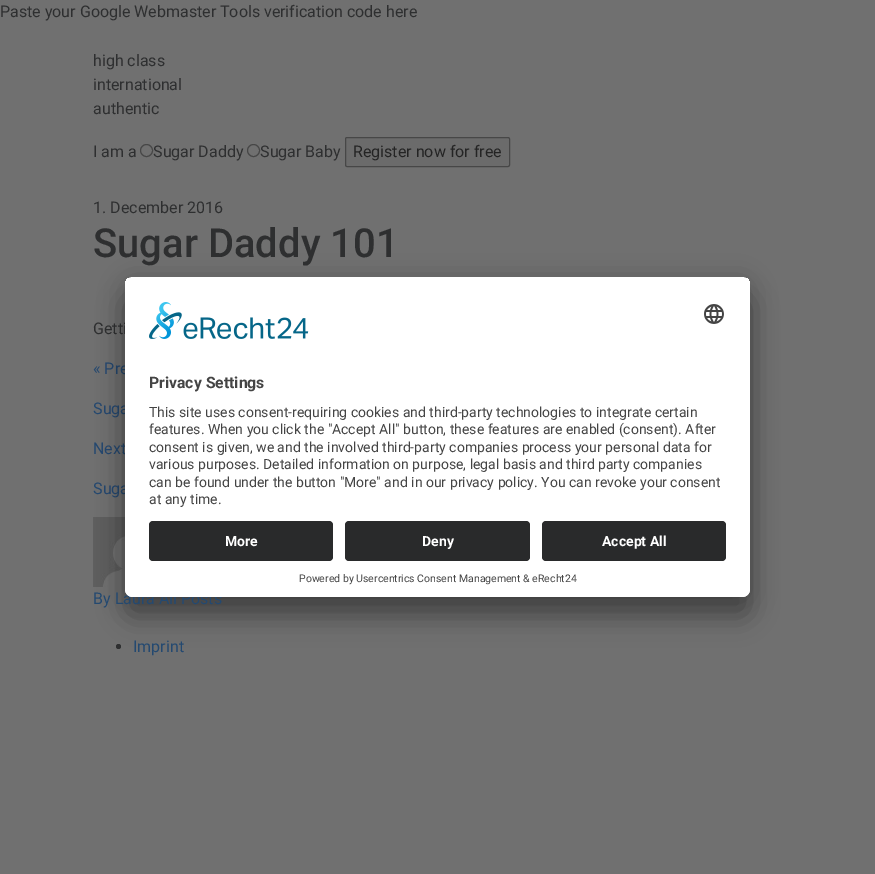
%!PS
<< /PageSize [875 874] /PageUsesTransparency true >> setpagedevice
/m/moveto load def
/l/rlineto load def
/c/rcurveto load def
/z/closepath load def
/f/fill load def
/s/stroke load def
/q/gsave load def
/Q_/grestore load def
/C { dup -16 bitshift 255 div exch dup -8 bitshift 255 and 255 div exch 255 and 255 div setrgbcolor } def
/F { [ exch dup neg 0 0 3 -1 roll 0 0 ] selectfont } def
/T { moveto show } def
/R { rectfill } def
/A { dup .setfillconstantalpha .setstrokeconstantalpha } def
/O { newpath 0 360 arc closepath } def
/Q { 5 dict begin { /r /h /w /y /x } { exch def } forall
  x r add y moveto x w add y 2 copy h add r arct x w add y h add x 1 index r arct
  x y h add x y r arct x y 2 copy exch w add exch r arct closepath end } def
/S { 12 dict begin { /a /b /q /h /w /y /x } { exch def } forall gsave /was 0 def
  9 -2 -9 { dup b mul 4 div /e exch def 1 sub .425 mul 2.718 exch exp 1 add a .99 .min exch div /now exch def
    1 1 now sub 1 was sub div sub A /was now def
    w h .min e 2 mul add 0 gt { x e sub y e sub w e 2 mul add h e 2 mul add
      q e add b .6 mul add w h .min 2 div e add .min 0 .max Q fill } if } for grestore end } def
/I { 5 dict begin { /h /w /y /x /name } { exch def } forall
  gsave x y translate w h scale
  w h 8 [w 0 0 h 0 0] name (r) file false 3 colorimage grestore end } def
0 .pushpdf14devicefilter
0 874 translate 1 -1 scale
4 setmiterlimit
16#707070 C
0 0 875 874 R
/Roboto-Regular 16 F
16#2E2F30 C
(Paste your Google Webmaster Tools verification code here) 0 17 T
(high class) 93 66 T
(international) 93 90 T
(authentic) 93 114 T
(I am a) 93 157 T
16#474747 C
146.5 150.5 6 O s
16#2E2F30 C
(Sugar Daddy) 153 157 T
16#474747 C
253.5 150.5 6 O s
16#2E2F30 C
(Sugar Baby) 260 157 T
16#6B6B6B C
345.5 137.5 164 29 1.5 Q q f Q_
16#474747 C
s
16#242424 C
(Register now for free) 353 157 T
16#2E2F30 C
(1. December 2016) 93 213 T
/Roboto-Medium 40 F
(Sugar Daddy 101) 93 257 T
/Roboto-Regular 16 F
(Getti) 93 334 T
16#244970 C
(« Pre) 93 374 T
(Suga) 93 414 T
(Next) 93 454 T
(Suga) 93 494 T
(3.rgb) 93 517 32 70 I
16#2E2F30 C
118.5 646.5 2.5 O f
16#000000 C
125 297 625 320 8 14 .3 S
125 282 625 320 8 13 .22 S
16#244970 C
(By Laura All Posts) 93 604 T
16#FFFFFF C
125 277 625 320 8 Q f
q
125 277 625 320 8 Q clip newpath
133 277 m 609 0 l 4.5 0 8 3.5 8 8 c 0 228 l -625 0 l 0 -228 l 0 -4.5 3.5 -8 8 -8 c z clip newpath
125 278 625 235 R
Q_
(1.rgb) 149 302 160 37 I
(2.rgb) 704 304 20 20 I
/Roboto-Bold 15.75 F
16#444444 C
(Privacy Settings) 149 388 T
/Roboto-Regular 14 F
(This site uses consent-requiring cookies and third-party technologies to integrate certain) 149 417 T
(features. When you click the "Accept All" button, these features are enabled \(consent\). After) 149 434 T
(consent is given, we and the involved third-party companies process your personal data for) 149 452 T
(various purposes. Detailed information on purpose, legal basis and third party companies) 149 469 T
(can be found under the button "More" and in our privacy policy. You can revoke your consent) 149 487 T
(at any time.) 149 504 T
16#FFFFFF C
125 513 m 625 0 l 0 76 l 0 4.5 -3.5 8 -8 8 c -609 0 l -4.5 0 -8 -3.5 -8 -8 c z f
16#292A2B C
149 521 184 40 4 Q f
/Roboto-Bold 14 F
16#FFFFFF C
(More) 225 546 T
16#292A2B C
345 521 185 40 4 Q f
16#FFFFFF C
(Deny) 422 546 T
16#292A2B C
542 521 184 40 4 Q f
16#FFFFFF C
(Accept All) 602 546 T
/Roboto-Regular 10.5 F
16#444444 C
(Powered by Usercentrics Consent Management & eRecht24) 299 582 T
/Roboto-Regular 16 F
16#244970 C
(Imprint) 133 652 T
.poppdf14devicefilter showpage
